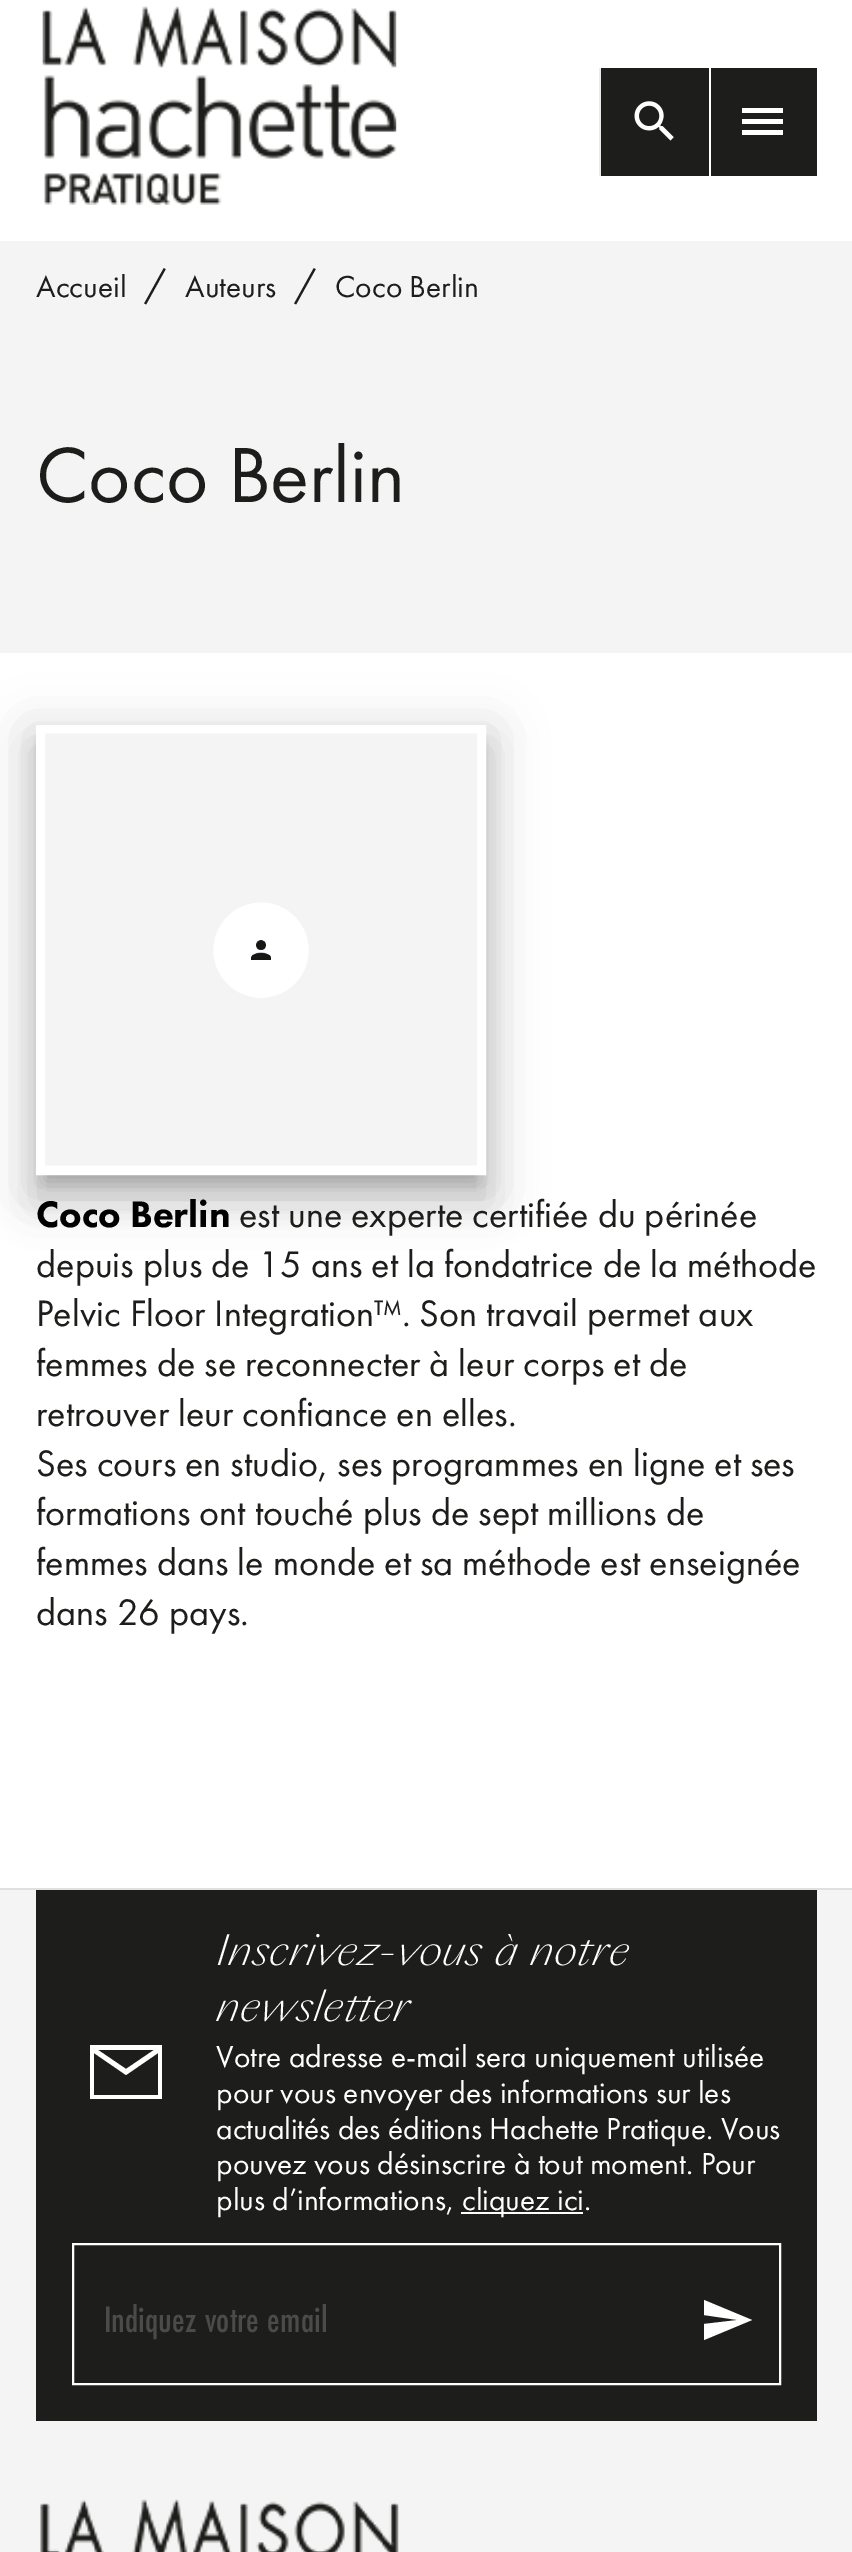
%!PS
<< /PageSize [852 2552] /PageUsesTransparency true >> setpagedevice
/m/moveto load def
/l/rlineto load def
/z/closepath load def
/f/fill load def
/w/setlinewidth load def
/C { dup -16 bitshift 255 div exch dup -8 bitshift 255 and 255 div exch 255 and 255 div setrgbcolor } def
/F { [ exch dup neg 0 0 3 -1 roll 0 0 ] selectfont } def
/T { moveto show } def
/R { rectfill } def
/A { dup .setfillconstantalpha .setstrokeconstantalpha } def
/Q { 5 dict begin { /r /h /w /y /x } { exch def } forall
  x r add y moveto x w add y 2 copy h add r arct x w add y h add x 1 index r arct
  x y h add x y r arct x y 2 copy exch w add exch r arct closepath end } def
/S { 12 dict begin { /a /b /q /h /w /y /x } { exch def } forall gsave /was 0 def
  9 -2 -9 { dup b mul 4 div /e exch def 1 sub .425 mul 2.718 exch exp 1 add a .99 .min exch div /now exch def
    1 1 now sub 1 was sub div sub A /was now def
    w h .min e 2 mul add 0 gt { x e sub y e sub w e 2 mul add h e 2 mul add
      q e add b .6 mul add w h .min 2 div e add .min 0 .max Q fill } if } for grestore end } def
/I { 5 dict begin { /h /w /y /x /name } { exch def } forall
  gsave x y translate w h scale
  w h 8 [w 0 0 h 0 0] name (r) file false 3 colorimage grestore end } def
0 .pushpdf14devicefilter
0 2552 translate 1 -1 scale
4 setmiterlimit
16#FFFFFF C
0 0 852 2552 R
(1.rgb) 42 6 355 199 I
16#EBEBEB C
599 68 2 108 R
16#1D1D1B C
601 68 216 108 R
(2.rgb) 634 101 40 40 I
16#FFFFFF C
709 68 2 108 R
742 108 m 41 0 l 0 5 l -41 0 l z 742 124 m 0 -5 l 41 0 l 0 5 l z 742 135 m 0 -5 l 41 0 l 0 5 l z f
16#F4F4F4 C
0 241 852 412 R
/FuturaPT-Regular 31.5 F
16#1D1D1B C
(Accueil) 36 297 T
/FuturaPT-Regular 38.25 F
(/) 144 297 T
/FuturaPT-Regular 31.5 F
(Auteurs) 185 297 T
/FuturaPT-Regular 38.25 F
(/) 294 297 T
/FuturaPT-Regular 31.5 F
(Coco Berlin) 335 297 T
/FuturaPT-Regular 81 F
(Coco Berlin) 36 502 T
16#000000 C
27 727 468 468 0 25 .12 S
32 747 459 459 0 19 .14 S
45 749 432 432 0 9 .2 S
16#FFFFFF C
9 w
40.5 729.5 441 441 rectstroke
(3.rgb) 45 733 432 433 I
/FuturaPT-Black 38.25 F
16#000000 C
(Coco Berlin) 36 1227 T
/FuturaPT-Regular 38.25 F
16#1D1D1B C
(est une experte certifiée du périnée) 239 1227 T
(depuis plus de 15 ans et la fondatrice de la méthode) 36 1277 T
(Pelvic Floor Integration™. Son travail permet aux) 36 1326 T
(femmes de se reconnecter à leur corps et de) 36 1376 T
(retrouver leur confiance en elles.) 36 1426 T
(Ses cours en studio, ses programmes en ligne et ses) 36 1476 T
(formations ont touché plus de sept millions de) 36 1525 T
(femmes dans le monde et sa méthode est enseignée) 36 1575 T
(dans 26 pays.) 36 1625 T
16#F4F4F4 C
0 1890 852 662 R
16#E0E0E0 C
0 1888 852 2 R
16#1D1D1B C
36 1890 781 531 R
16#FFFFFF C
154 2050 m -56 0 l 28 19 l z 95 2050 m 0 0 l z 94 2053 m 0 42 l 64 0 l 0 -42 l -32 22 l z 90 2099 m 0 -54 l 72 0 l 0 54 l z eofill
/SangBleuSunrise-Light 40.5 F
(Inscrivez-vous à notre) 216 1965 T
(newsletter) 216 2021 T
/FuturaPT-Regular 31.5 F
(Votre adresse e-mail sera uniquement utilisée) 216 2067 T
(pour vous envoyer des informations sur les) 216 2103 T
(actualités des éditions Hachette Pratique. Vous) 216 2139 T
(pouvez vous désinscrire à tout moment. Pour) 216 2174 T
(plus d’informations,) 216 2210 T
461 2212 122 2 R
(cliquez ici.) 462 2210 T
2 w
73 2244 707 140 rectstroke
/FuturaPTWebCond-Medium 38.25 F
16#4B4B4B C
(Indiquez votre email) 104 2332 T
16#FFFFFF C
704 2340 m 0 -16 l 34 -4 l -34 -5 l 0 -15 l 48 20 l z f
(4.rgb) 40 2499 359 53 I
.poppdf14devicefilter showpage
